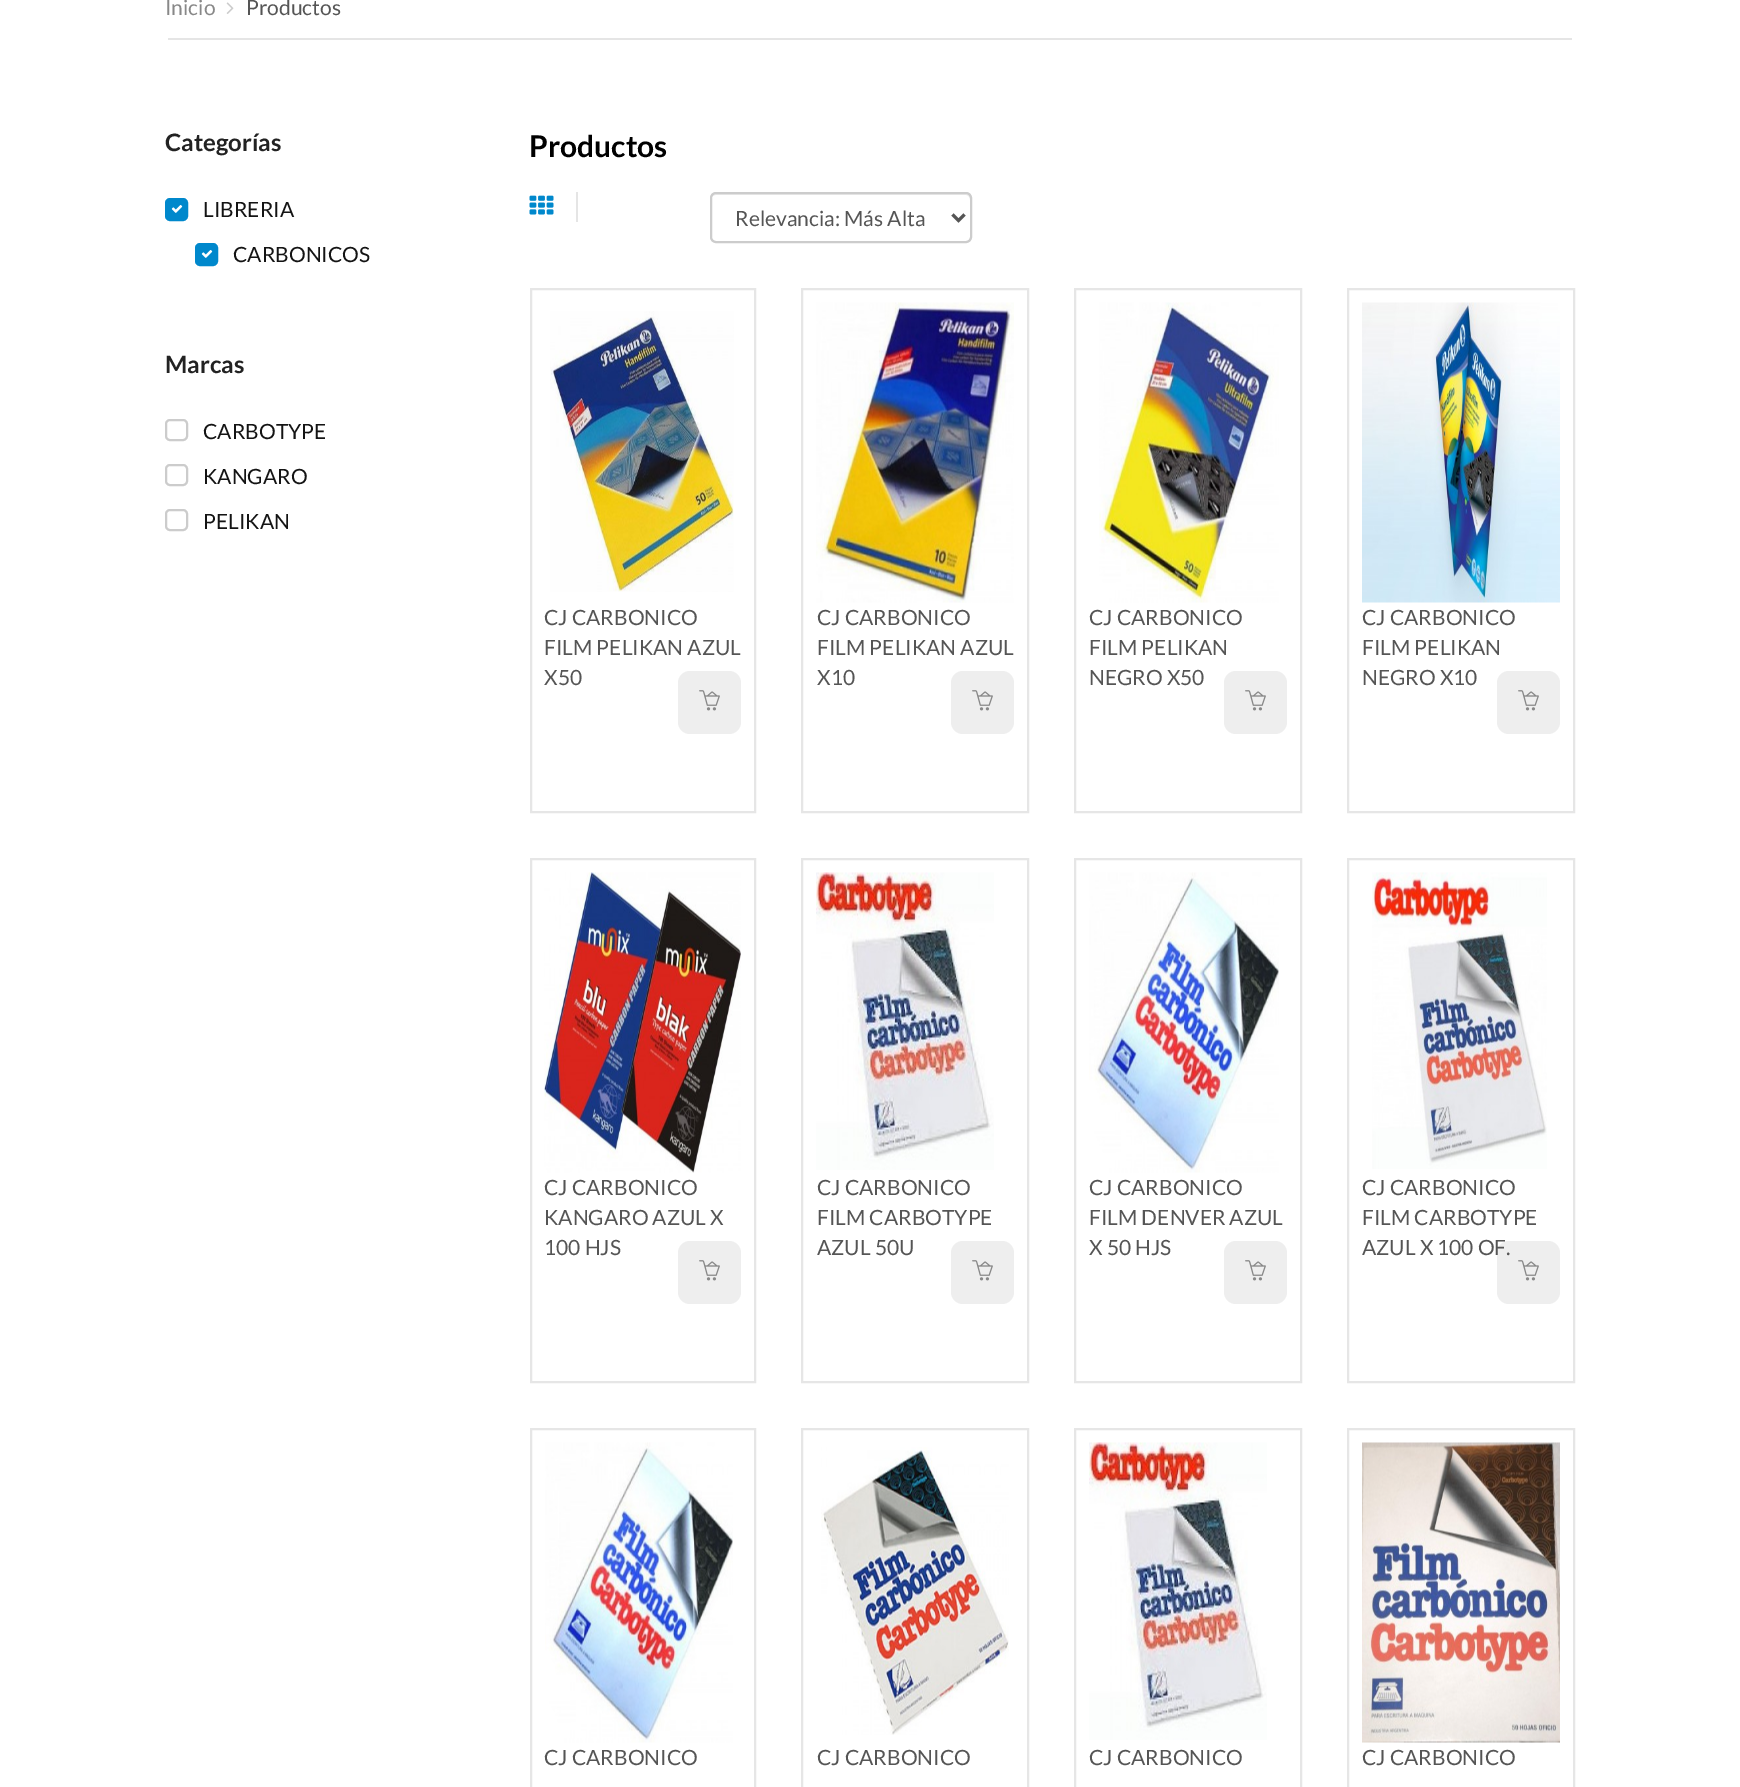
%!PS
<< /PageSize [1740 1787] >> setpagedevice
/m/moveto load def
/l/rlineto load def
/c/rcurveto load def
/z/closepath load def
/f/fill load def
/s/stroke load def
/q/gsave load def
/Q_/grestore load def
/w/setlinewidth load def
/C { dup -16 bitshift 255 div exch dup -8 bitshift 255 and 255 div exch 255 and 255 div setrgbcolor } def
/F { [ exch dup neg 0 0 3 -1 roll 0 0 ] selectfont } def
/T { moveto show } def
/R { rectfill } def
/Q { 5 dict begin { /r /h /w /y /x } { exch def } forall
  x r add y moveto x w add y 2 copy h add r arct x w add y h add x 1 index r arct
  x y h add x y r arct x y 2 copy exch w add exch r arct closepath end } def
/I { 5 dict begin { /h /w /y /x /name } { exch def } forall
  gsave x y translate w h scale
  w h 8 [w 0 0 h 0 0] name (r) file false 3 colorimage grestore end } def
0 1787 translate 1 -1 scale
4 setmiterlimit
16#FFFFFF C
0 0 1740 1787 R
16#E5E5E5 C
168 38 1404 2 R
/Lato-Regular 21 F
16#888888 C
(Inicio) 165 15 T
(1.rgb) 226 2 8 12 I
16#555555 C
(Productos) 246 15 T
/Lato-Bold 24 F
16#222222 C
(Categorías) 165 151 T
16#0088CC C
166 199 21 21 4 Q q f Q_
2 w
s
/Lato-Regular 21 F
16#141414 C
(LIBRERIA) 203 217 T
(2.rgb) 171 205 12 8 I
16#0088CC C
196 244 21 21 4 Q q f Q_
s
16#141414 C
(CARBONICOS) 233 262 T
(2.rgb) 201 250 12 8 I
/Lato-Bold 24 F
16#222222 C
(Marcas) 165 373 T
16#CCCCCC C
166 420 21 20 4 Q s
/Lato-Regular 21 F
16#141414 C
(CARBOTYPE) 203 439 T
16#CCCCCC C
166 465 21 20 4 Q s
16#141414 C
(KANGARO) 203 484 T
16#CCCCCC C
166 510 21 20 4 Q s
16#141414 C
(PELIKAN) 203 529 T
/Lato-Bold 30 F
16#000000 C
(Productos) 529 157 T
16#E5E5E5 C
576 192 2 30 R
(3.rgb) 529 195 25 20 I
16#ECECEC C
716 195 m 250 0 l 2 0 4 2 4 5 c 0 38 l -1 3 l 1 -1 2 -3 2 -4 c 0 -38 l 0 -3 -2 -5 -5 -5 c -250 0 l -3 0 -5 2 -5 5 c 0 1 l 0 -3 2 -5 5 -5 c z f
16#CCCCCC C
711 193 260 49 5 Q s
16#555555 C
3 w
952.5 214.5 m 6 6 l 6 -6 l s
/Lato-Regular 21 F
(Relevancia: Más Alta) 735 226 T
16#E6E6E6 C
2 w
531 289 224 523 rectstroke
(4.rgb) 550 311 184 281 I
16#555555 C
(CJ CARBONICO) 544 625 T
(FILM PELIKAN AZUL) 544 655 T
(X50) 544 685 T
16#EEEEEE C
678 671 63 63 12 Q f
(5.rgb) 699 690 21 21 I
16#E6E6E6 C
802 289 226 523 rectstroke
(6.rgb) 816 302 198 301 I
16#555555 C
(CJ CARBONICO) 817 625 T
(FILM PELIKAN AZUL) 817 655 T
(X10) 817 685 T
16#EEEEEE C
951 671 63 63 12 Q f
(5.rgb) 972 690 21 21 I
16#E6E6E6 C
1075 289 226 523 rectstroke
(7.rgb) 1099 302 180 301 I
16#555555 C
(CJ CARBONICO) 1089 625 T
(FILM PELIKAN) 1089 655 T
(NEGRO X50) 1089 685 T
16#EEEEEE C
1224 671 63 63 12 Q f
(5.rgb) 1245 690 21 21 I
16#E6E6E6 C
1348 289 226 523 rectstroke
(8.rgb) 1362 302 198 301 I
16#555555 C
(CJ CARBONICO) 1362 625 T
(FILM PELIKAN) 1362 655 T
(NEGRO X10) 1362 685 T
16#EEEEEE C
1497 671 63 63 12 Q f
(5.rgb) 1518 690 21 21 I
16#E6E6E6 C
531 859 224 523 rectstroke
(9.rgb) 544 872 197 301 I
16#555555 C
(CJ CARBONICO) 544 1195 T
(KANGARO AZUL X) 544 1225 T
(100 HJS) 544 1255 T
16#EEEEEE C
678 1241 63 63 12 Q f
(5.rgb) 699 1260 21 21 I
16#E6E6E6 C
802 859 226 523 rectstroke
(10.rgb) 816 872 178 298 I
16#555555 C
(CJ CARBONICO) 817 1195 T
(FILM CARBOTYPE) 817 1225 T
(AZUL 50U) 817 1255 T
16#EEEEEE C
951 1241 63 63 12 Q f
(5.rgb) 972 1260 21 21 I
16#E6E6E6 C
1075 859 226 523 rectstroke
(11.rgb) 1089 872 190 301 I
16#555555 C
(CJ CARBONICO) 1089 1195 T
(FILM DENVER AZUL) 1089 1225 T
(X 50 HJS) 1089 1255 T
16#EEEEEE C
1224 1241 63 63 12 Q f
(5.rgb) 1245 1260 21 21 I
16#E6E6E6 C
1348 859 226 523 rectstroke
(12.rgb) 1372 872 175 297 I
16#555555 C
(CJ CARBONICO) 1362 1195 T
(FILM CARBOTYPE) 1362 1225 T
16#EEEEEE C
1497 1241 63 63 12 Q f
16#555555 C
(AZUL X 100 OF.) 1362 1255 T
(5.rgb) 1518 1260 21 21 I
16#E6E6E6 C
531 1429 224 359 rectstroke
(13.rgb) 545 1442 188 301 I
16#555555 C
(CJ CARBONICO) 544 1765 T
16#E6E6E6 C
802 1429 226 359 rectstroke
(14.rgb) 821 1447 188 288 I
16#555555 C
(CJ CARBONICO) 817 1765 T
16#E6E6E6 C
1075 1429 226 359 rectstroke
(10.rgb) 1089 1442 178 298 I
16#555555 C
(CJ CARBONICO) 1089 1765 T
16#E6E6E6 C
1348 1429 226 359 rectstroke
(15.rgb) 1362 1442 198 301 I
16#555555 C
(CJ CARBONICO) 1362 1765 T
showpage
